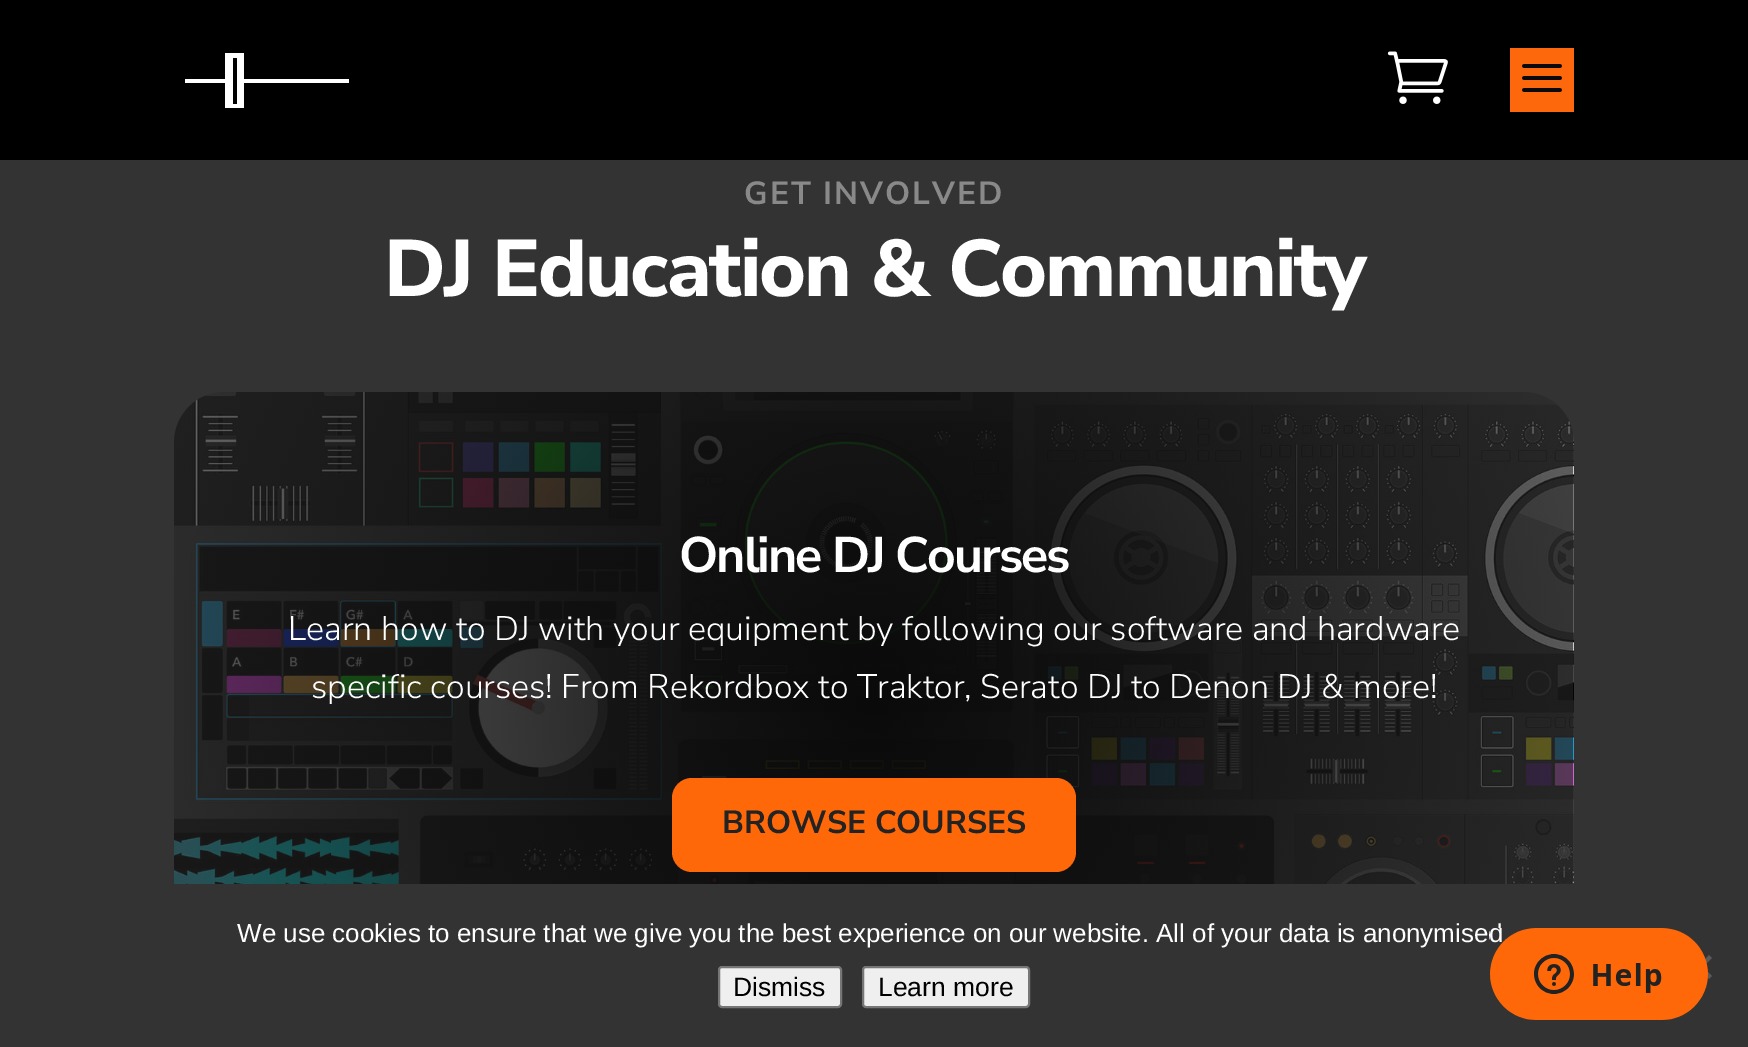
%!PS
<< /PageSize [1748 1047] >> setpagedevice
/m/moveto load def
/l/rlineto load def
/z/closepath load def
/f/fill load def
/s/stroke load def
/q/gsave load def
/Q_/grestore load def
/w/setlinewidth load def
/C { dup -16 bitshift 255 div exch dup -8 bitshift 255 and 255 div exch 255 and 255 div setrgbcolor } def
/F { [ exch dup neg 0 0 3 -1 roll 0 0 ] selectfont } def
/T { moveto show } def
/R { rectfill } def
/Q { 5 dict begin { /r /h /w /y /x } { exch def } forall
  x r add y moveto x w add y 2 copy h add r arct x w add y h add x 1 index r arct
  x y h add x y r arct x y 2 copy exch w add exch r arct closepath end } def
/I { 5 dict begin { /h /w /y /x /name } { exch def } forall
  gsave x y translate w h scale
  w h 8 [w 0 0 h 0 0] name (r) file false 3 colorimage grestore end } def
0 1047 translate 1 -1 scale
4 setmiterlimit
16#333333 C
0 0 1748 1047 R
16#000000 C
0 0 1748 160 R
q
184 52 166 56 rectclip
16#FFFFFF C
244 79 m 0 -26 l -19 0 l 0 26 l -40 0 l 0 4 l 40 0 l 0 26 l 19 0 l 0 -26 l 105 0 l 0 -4 l z 237 104 m -4 0 l 0 -46 l 4 0 l z f
Q_
(1.rgb) 1387 51 61 53 I
16#FE680D C
1510 48 64 64 R
(2.rgb) 1522 64 40 28 I
/NunitoSans-Bold 32 F
16#898989 C
744 204 m 2 0 (GET INVOLVED) ashow
/NunitoSans-ExtraBold 80 F
16#FFFFFF C
384 296 m -2 0 (DJ Education & Community) ashow
(3.rgb) 174 392 1400 492 I
/NunitoSans-Bold 50 F
679 572 m -2 0 (Online DJ Courses) ashow
/NunitoSans-Light 34 F
(Learn how to DJ with your equipment by following our software and hardware) 288 640 T
(specific courses! From Rekordbox to Traktor, Serato DJ to Denon DJ & more!) 311 698 T
16#FE6809 C
672 778 404 94 20 Q f
/NunitoSans-Bold 32 F
16#232323 C
(BROWSE COURSES) 722 833 T
/LiberationSans-Regular 26 F
16#FFFFFF C
(We use cookies to ensure that we give you the best experience on our website. All of your data is anonymised) 237 942 T
16#5A5A5A C
1709 955 m 3 3 l -21 21 l -3 -3 l z f
1688 958 m 3 -3 l 21 21 l -3 3 l z f
16#EFEFEF C
719 967 122 40 3 Q q f Q_
16#767676 C
2 w
s
/LiberationSans-Regular 26.5 F
16#000000 C
(Dismiss) 733 996 T
16#EFEFEF C
863 967 166 40 3 Q q f Q_
16#767676 C
s
16#000000 C
(Learn more) 878 996 T
(4.rgb) 1490 928 218 92 I
showpage
